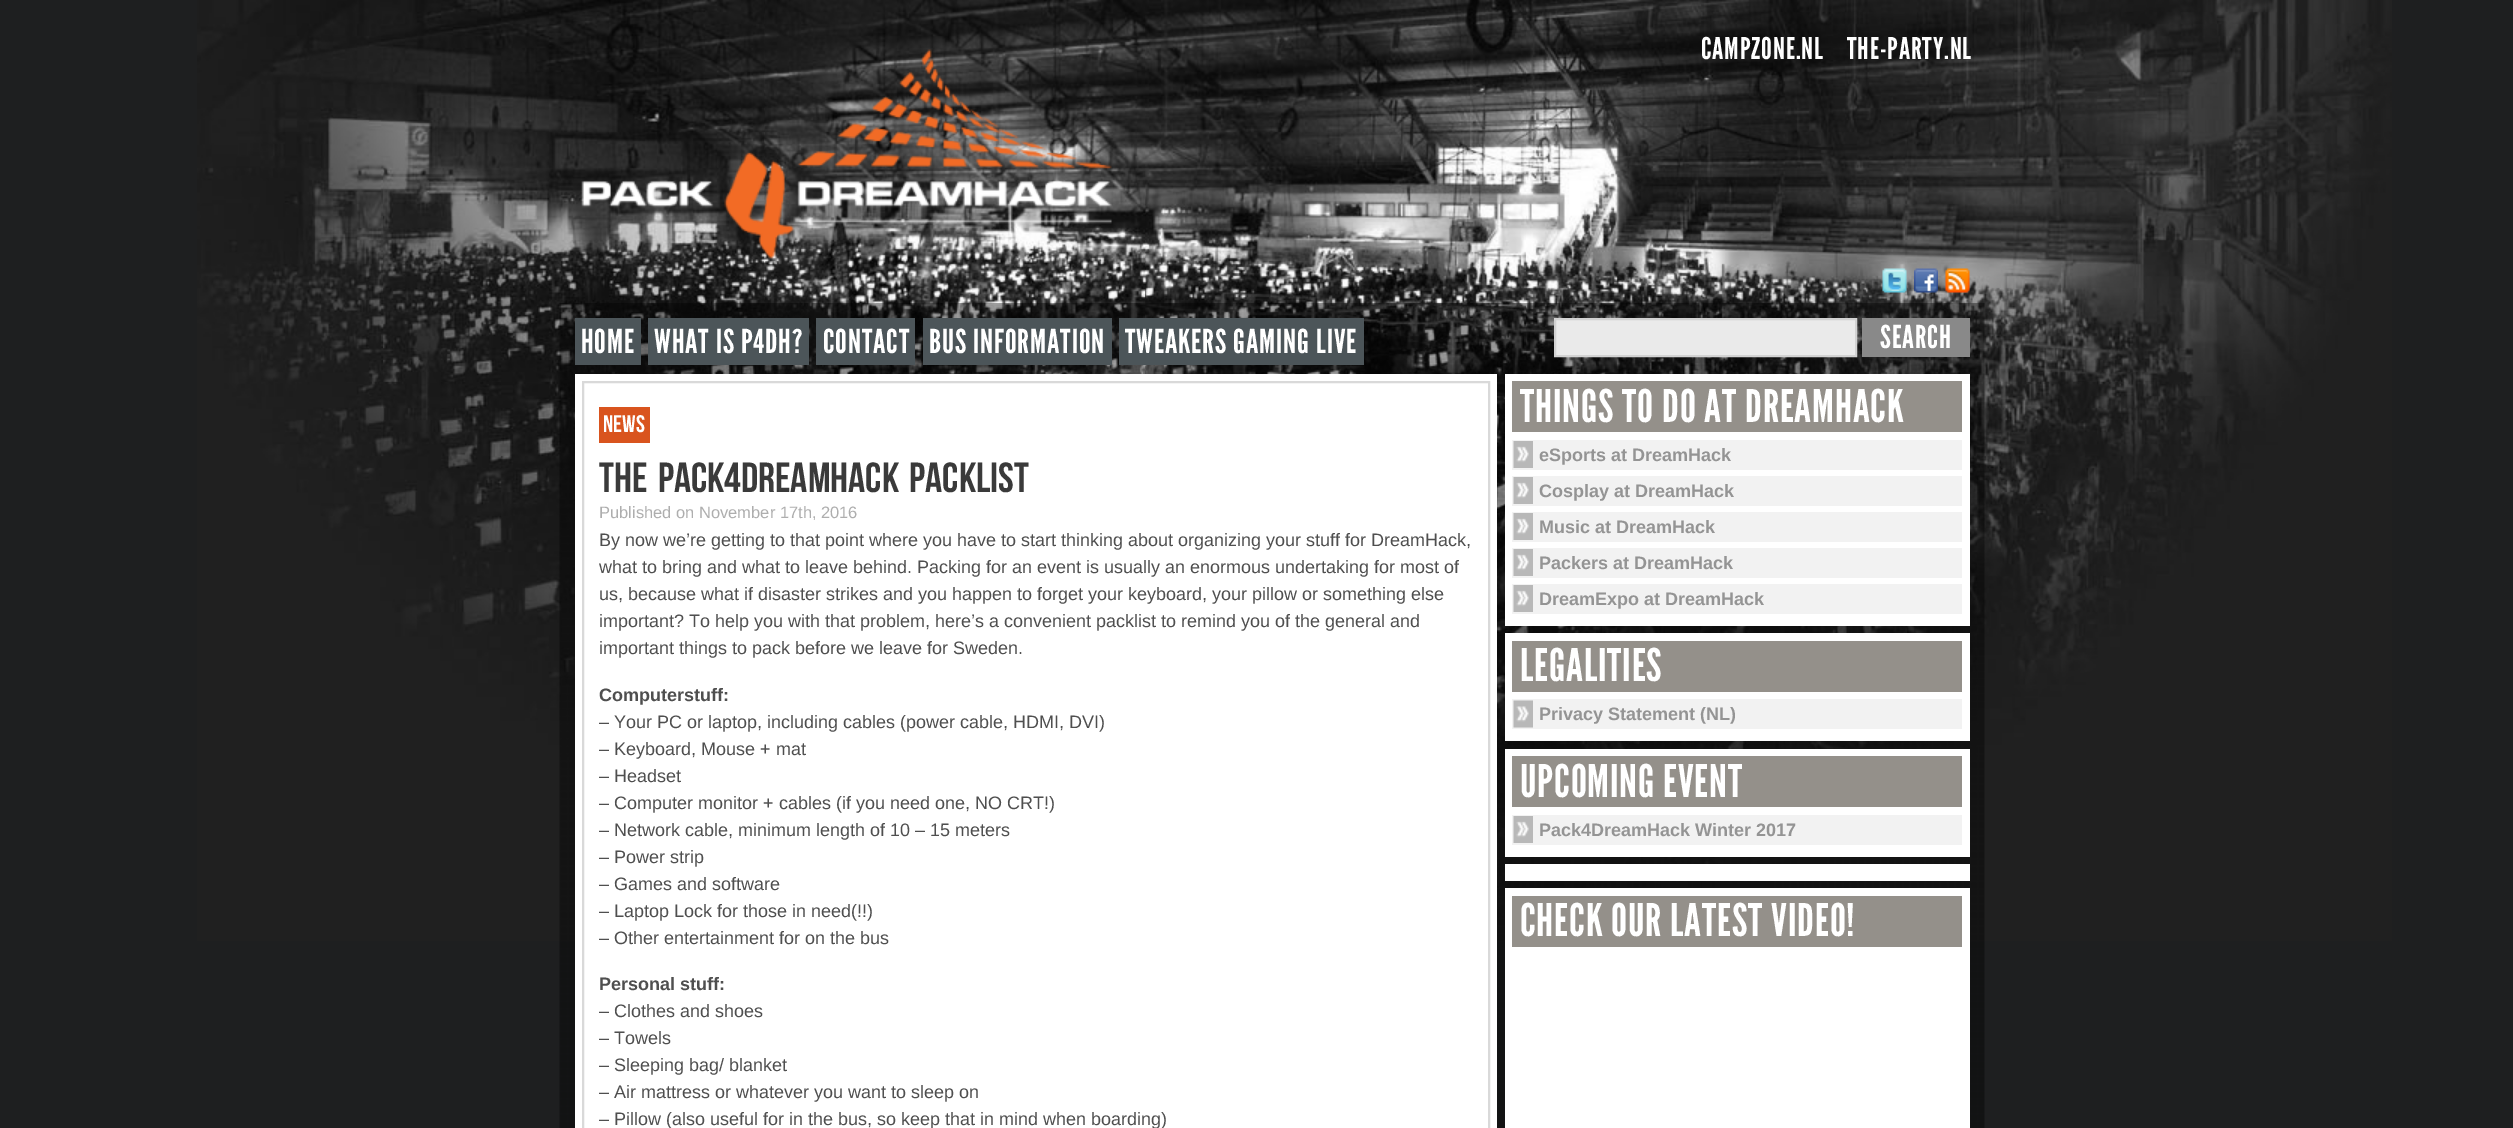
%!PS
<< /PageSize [2513 1128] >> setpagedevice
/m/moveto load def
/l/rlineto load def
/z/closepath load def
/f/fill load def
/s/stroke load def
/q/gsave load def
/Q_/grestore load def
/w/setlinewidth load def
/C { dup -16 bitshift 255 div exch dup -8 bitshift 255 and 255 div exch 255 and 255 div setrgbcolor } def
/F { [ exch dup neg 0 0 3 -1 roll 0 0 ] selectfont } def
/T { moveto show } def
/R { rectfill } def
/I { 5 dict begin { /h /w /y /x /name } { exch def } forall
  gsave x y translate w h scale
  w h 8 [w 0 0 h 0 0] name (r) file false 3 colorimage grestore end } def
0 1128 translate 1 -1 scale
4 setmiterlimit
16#1E1F20 C
0 0 2513 1128 R
(1.rgb) 197 0 2195 941 I
(2.rgb) 581 49 531 210 I
/LeagueGothic-Regular 30 F
16#FFFFFF C
1701 59 m .9 0 (CAMPZONE.NL) ashow
1847 59 m .9 0 (THE-PARTY.NL) ashow
(3.rgb) 1882 268 25 25 I
(4.rgb) 1914 268 24 25 I
(5.rgb) 1945 268 25 25 I
(6.rgb) 559 303 1426 825 I
16#4C5559 C
575 318 66 47 R
/LeagueGothic-Regular 33 F
16#FFFFFF C
581 353 m .9 0 (HOME) ashow
16#4C5559 C
648 318 161 47 R
16#FFFFFF C
654 353 m .9 0 (WHAT IS P4DH?) ashow
16#4C5559 C
816 318 99 47 R
16#FFFFFF C
823 353 m .9 0 (CONTACT) ashow
16#4C5559 C
923 318 189 47 R
16#FFFFFF C
929 353 m .9 0 (BUS INFORMATION) ashow
16#4C5559 C
1119 318 245 47 R
16#FFFFFF C
1125 353 m .9 0 (TWEAKERS GAMING LIVE) ashow
16#EAEAEA C
1555 319 m 301 0 l 0 37 l -301 0 l z q f Q_
16#D2D2D2 C
2 w
s
16#898989 C
1862 318 108 39 R
/LeagueGothic-Regular 31.5 F
16#FFFFFF C
1880 348 m .9 0 (SEARCH) ashow
575 374 922 754 R
16#D9D9D9 C
583 382 906 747 rectstroke
16#D9541E C
599 407 51 36 R
/BebasNeue-Regular 24 F
16#FFFFFF C
(NEWS) 603 432 T
/BebasNeue-Regular 42 F
16#3A3A3A C
599 492 m 4 0 32 (THE PACK4DREAMHACK PACKLIST) widthshow
/LiberationSans-Regular 16.5 F
16#AEAEAE C
(Published on November 17th, 2016) 599 518 T
/LiberationSans-Regular 18 F
16#4F4F4F C
(By now we’re getting to that point where you have to start thinking about organizing your stuff for DreamHack,) 599 546 T
(what to bring and what to leave behind. Packing for an event is usually an enormous undertaking for most of) 599 573 T
(us, because what if disaster strikes and you happen to forget your keyboard, your pillow or something else) 599 600 T
(important? To help you with that problem, here’s a convenient packlist to remind you of the general and) 599 627 T
(important things to pack before we leave for Sweden.) 599 654 T
/LiberationSans-Bold 18 F
(Computerstuff:) 599 701 T
/LiberationSans-Regular 18 F
(– Your PC or laptop, including cables \(power cable, HDMI, DVI\)) 599 728 T
(– Keyboard, Mouse + mat) 599 755 T
(– Headset) 599 782 T
(– Computer monitor + cables \(if you need one, NO CRT!\)) 599 809 T
(– Network cable, minimum length of 10 – 15 meters) 599 836 T
(– Power strip) 599 863 T
(– Games and software) 599 890 T
(– Laptop Lock for those in need\(!!\)) 599 917 T
(– Other entertainment for on the bus) 599 944 T
/LiberationSans-Bold 18 F
(Personal stuff:) 599 990 T
/LiberationSans-Regular 18 F
(– Clothes and shoes) 599 1017 T
(– Towels) 599 1044 T
(– Sleeping bag/ blanket) 599 1071 T
(– Air mattress or whatever you want to sleep on) 599 1098 T
(– Pillow \(also useful for in the bus, so keep that in mind when boarding\)) 599 1125 T
16#FFFFFF C
1505 374 465 252 R
16#94908A C
1512 381 450 51 R
/LeagueGothic-Regular 45 F
16#FFFFFF C
1520 422 m .9 0 (THINGS TO DO AT DREAMHACK) ashow
16#F2F2F2 C
1512 440 450 30 R
(7.rgb) 1513 441 20 27 I
/LiberationSans-Bold 18 F
16#949494 C
(eSports at DreamHack) 1539 461 T
16#F2F2F2 C
1512 476 450 30 R
(7.rgb) 1513 477 20 27 I
16#949494 C
(Cosplay at DreamHack) 1539 497 T
16#F2F2F2 C
1512 512 450 30 R
(7.rgb) 1513 513 20 27 I
16#949494 C
(Music at DreamHack) 1539 533 T
16#F2F2F2 C
1512 548 450 30 R
(7.rgb) 1513 549 20 27 I
16#949494 C
(Packers at DreamHack) 1539 569 T
16#F2F2F2 C
1512 584 450 30 R
(7.rgb) 1513 585 20 27 I
16#949494 C
(DreamExpo at DreamHack) 1539 605 T
16#FFFFFF C
1505 633 465 108 R
16#94908A C
1512 641 450 51 R
/LeagueGothic-Regular 45 F
16#FFFFFF C
1520 681 m .9 0 (LEGALITIES) ashow
16#F2F2F2 C
1512 699 450 30 R
(8.rgb) 1513 700 20 28 I
/LiberationSans-Bold 18 F
16#949494 C
(Privacy Statement \(NL\)) 1539 720 T
16#FFFFFF C
1505 749 465 108 R
16#94908A C
1512 756 450 51 R
/LeagueGothic-Regular 45 F
16#FFFFFF C
1520 797 m .9 0 (UPCOMING EVENT) ashow
16#F2F2F2 C
1512 815 450 30 R
(7.rgb) 1513 816 20 27 I
/LiberationSans-Bold 18 F
16#949494 C
(Pack4DreamHack Winter 2017) 1539 836 T
16#FFFFFF C
1505 864 465 17 R
1505 888 465 240 R
16#94908A C
1512 896 450 51 R
/LeagueGothic-Regular 45 F
16#FFFFFF C
1520 936 m .9 0 (CHECK OUR LATEST VIDEO!) ashow
showpage
